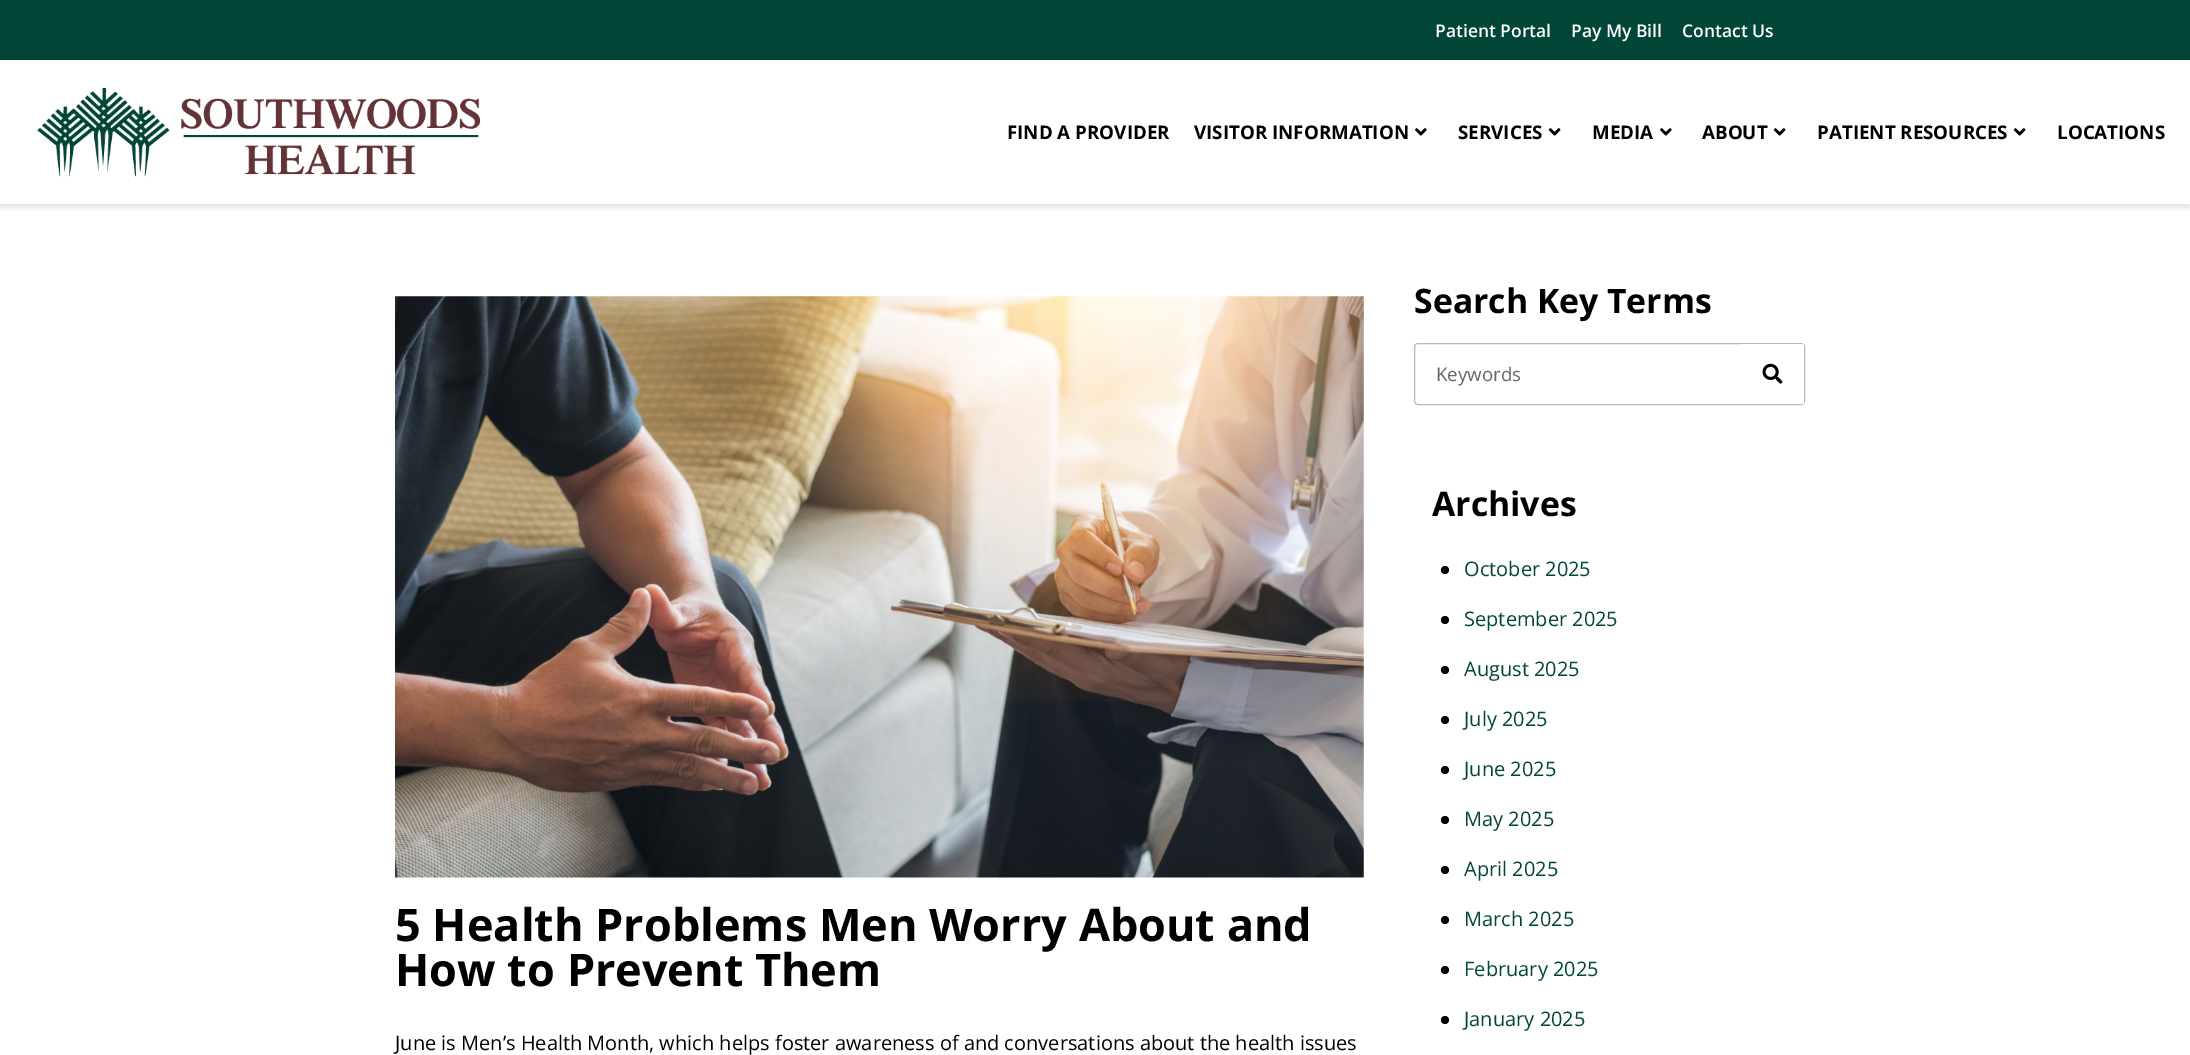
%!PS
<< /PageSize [2190 1055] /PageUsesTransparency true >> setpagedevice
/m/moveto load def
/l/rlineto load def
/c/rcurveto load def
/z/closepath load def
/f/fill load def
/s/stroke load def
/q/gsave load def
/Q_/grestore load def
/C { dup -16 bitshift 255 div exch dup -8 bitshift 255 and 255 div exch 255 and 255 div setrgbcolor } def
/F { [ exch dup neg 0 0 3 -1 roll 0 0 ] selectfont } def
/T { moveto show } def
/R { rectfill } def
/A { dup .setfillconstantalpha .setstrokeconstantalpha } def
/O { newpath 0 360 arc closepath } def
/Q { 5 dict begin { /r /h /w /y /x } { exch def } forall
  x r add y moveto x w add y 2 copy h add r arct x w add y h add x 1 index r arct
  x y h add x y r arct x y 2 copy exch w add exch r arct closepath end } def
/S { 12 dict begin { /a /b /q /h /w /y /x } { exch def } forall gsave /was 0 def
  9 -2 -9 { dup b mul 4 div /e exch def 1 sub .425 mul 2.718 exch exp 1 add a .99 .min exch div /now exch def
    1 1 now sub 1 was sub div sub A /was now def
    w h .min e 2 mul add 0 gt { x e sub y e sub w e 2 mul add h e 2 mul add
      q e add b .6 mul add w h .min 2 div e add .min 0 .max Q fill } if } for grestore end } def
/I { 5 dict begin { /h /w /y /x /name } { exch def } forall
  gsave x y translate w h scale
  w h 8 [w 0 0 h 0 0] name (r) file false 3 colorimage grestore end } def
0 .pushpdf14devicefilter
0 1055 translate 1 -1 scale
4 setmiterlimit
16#FFFFFF C
0 0 2190 1055 R
16#024638 C
0 0 2190 60 R
/OpenSans-SemiBold 17.5 F
16#FFFFFF C
(Patient Portal) 1435 37 T
(Pay My Bill) 1571 37 T
(Contact Us) 1682 37 T
q
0 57 m 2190 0 l 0 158 l -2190 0 l z 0 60 m 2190 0 l 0 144 l -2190 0 l z eoclip newpath
16#000000 C
0 64 2190 144 0 2 .1 S
Q_
(1.rgb) 37 88 443 89 I
/OpenSans-Bold 18.75 F
16#000000 C
(FIND A PROVIDER) 1007 139 T
(VISITOR INFORMATION) 1194 139 T
(2.rgb) 1415 128 12 8 I
(SERVICES) 1458 139 T
(3.rgb) 1548 128 13 8 I
(MEDIA) 1592 139 T
(2.rgb) 1660 128 12 8 I
(ABOUT) 1702 139 T
(3.rgb) 1773 128 13 8 I
(PATIENT RESOURCES) 1817 139 T
(3.rgb) 2013 128 13 8 I
(LOCATIONS) 2057 139 T
(4.rgb) 395 296 969 582 I
/OpenSans-Bold 45 F
(5 Health Problems Men Worry About and) 395 941 T
(How to Prevent Them) 395 986 T
/OpenSans-Regular 20 F
(June is Men’s Health Month, which helps foster awareness of and conversations about the health issues) 395 1050 T
/OpenSans-Bold 33.75 F
(Search Key Terms) 1414 313 T
16#B8B8B8 C
1414.5 343.5 390 61 3.5 Q s
/OpenSans-Regular 18.75 F
16#666666 C
(Keywords) 1436 381 T
16#FFFFFF C
1741 344 m 60.5 0 l 1.5 0 2.5 1 2.5 2.5 c 0 55 l 0 1.5 -1 2.5 -2.5 2.5 c -60.5 0 l z f
(5.rgb) 1762 363 21 21 I
/OpenSans-Bold 33.75 F
16#000000 C
(Archives) 1432 516 T
1445 570 4 O f
/OpenSans-Regular 20 F
16#024638 C
(October 2025) 1464 576 T
16#000000 C
1445 620 4 O f
16#024638 C
(September 2025) 1464 626 T
16#000000 C
1445 670 4 O f
16#024638 C
(August 2025) 1464 676 T
16#000000 C
1445 720 4 O f
16#024638 C
(July 2025) 1464 726 T
16#000000 C
1445 770 4 O f
16#024638 C
(June 2025) 1464 776 T
16#000000 C
1445 820 4 O f
16#024638 C
(May 2025) 1464 826 T
16#000000 C
1445 870 4 O f
16#024638 C
(April 2025) 1464 876 T
16#000000 C
1445 920 4 O f
16#024638 C
(March 2025) 1464 926 T
16#000000 C
1445 970 4 O f
16#024638 C
(February 2025) 1464 976 T
16#000000 C
1445 1020 4 O f
16#024638 C
(January 2025) 1464 1026 T
.poppdf14devicefilter showpage
